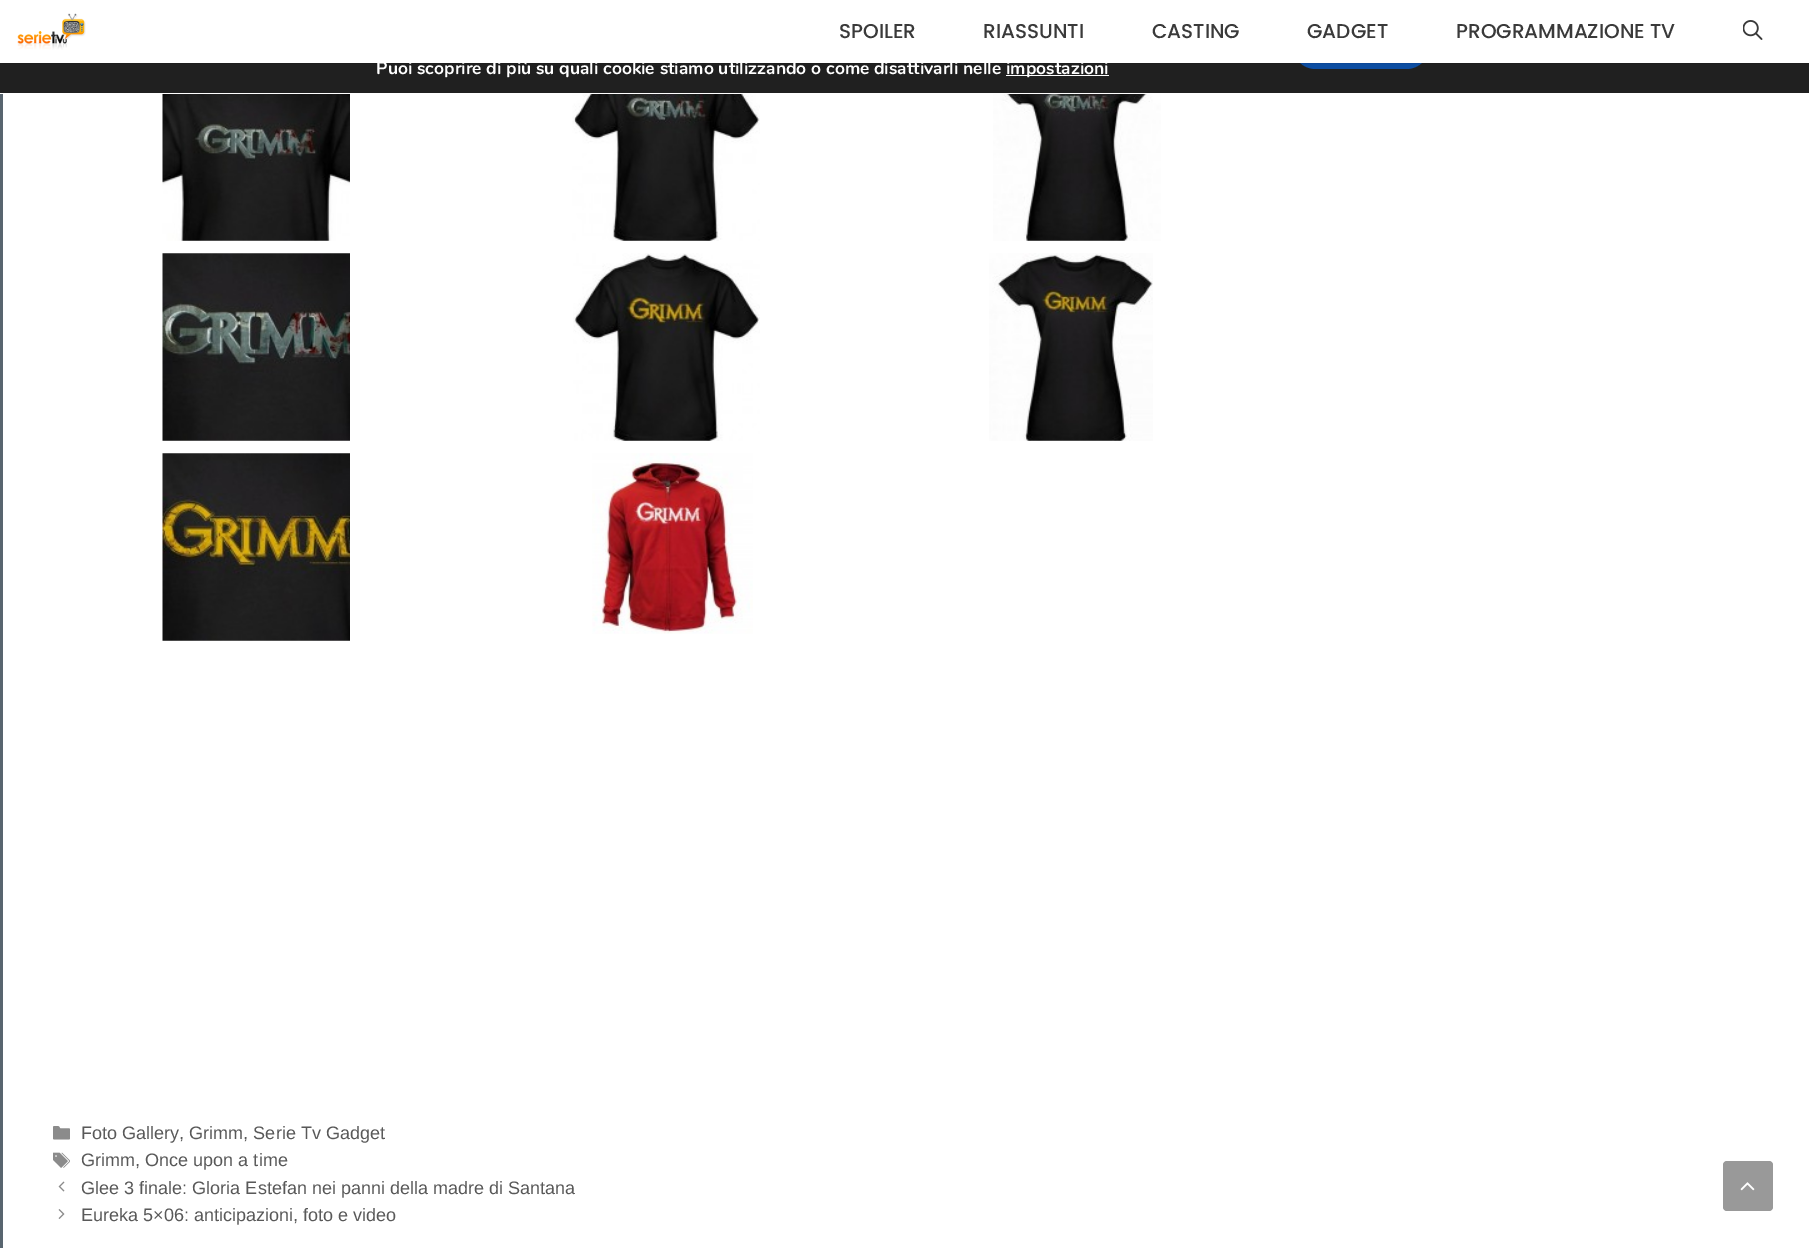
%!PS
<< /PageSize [1809 1248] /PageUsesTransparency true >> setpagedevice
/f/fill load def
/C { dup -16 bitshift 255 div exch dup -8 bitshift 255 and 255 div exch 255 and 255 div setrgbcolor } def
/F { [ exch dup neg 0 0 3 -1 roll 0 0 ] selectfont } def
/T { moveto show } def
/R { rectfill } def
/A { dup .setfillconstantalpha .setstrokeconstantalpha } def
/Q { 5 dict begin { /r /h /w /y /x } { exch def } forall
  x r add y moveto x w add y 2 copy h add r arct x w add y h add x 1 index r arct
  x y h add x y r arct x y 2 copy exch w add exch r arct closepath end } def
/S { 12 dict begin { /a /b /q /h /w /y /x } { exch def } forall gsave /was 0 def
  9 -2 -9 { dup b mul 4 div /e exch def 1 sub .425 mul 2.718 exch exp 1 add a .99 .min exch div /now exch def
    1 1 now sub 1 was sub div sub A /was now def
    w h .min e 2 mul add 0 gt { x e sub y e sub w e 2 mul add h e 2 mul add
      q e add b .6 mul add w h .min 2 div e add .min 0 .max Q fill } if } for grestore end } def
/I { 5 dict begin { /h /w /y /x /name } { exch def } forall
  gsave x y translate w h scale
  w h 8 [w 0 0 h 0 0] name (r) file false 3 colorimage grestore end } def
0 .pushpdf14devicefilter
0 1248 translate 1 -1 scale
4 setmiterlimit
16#58656F C
0 0 1809 1248 R
16#202020 C
0 63 1809 30 R
16#0C4DA2 C
1293 24 136 45 22.5 Q f
16#000000 C
3 5 1805 58 0 1 .2 S
16#FFFFFF C
0 0 1809 63 R
(1.rgb) 17 13 69 37 I
/Poppins-Medium 20 F
16#3A3A3A C
(SPOILER) 839 38 T
(RIASSUNTI) 983 38 T
(CASTING) 1152 38 T
(GADGET) 1307 38 T
(PROGRAMMAZIONE TV) 1456 38 T
(2.rgb) 1743 20 20 20 I
16#FFFFFF C
0 93 1809 1 R
/Nunito-Bold 17.5 F
(Puoi scoprire di più su quali cookie stiamo utilizzando o come disattivarli nelle) 376 74 T
1006 75 103 1 R
(impostazioni) 1006 74 T
3 94 1806 1154 R
(3.rgb) 162 94 188 147 I
(4.rgb) 572 94 188 147 I
(5.rgb) 993 94 168 147 I
(6.rgb) 162 253 188 188 I
(7.rgb) 573 253 187 188 I
(8.rgb) 989 253 164 188 I
(9.rgb) 162 453 188 188 I
(10.rgb) 592 453 161 181 I
(11.rgb) 53 1126 17 14 I
/LiberationSans-Regular 18.05 F
16#595959 C
(Foto Gallery, Grimm, Serie Tv Gadget) 81 1139 T
(12.rgb) 53 1152 17 16 I
(Grimm, Once upon a time) 81 1166 T
(13.rgb) 58 1181 7 11 I
(Glee 3 finale: Gloria Estefan nei panni della madre di Santana) 81 1194 T
(14.rgb) 58 1209 7 10 I
(Eureka 5×06: anticipazioni, foto e video) 81 1221 T
16#999999 C
1723 1161 50 50 4 Q f
(15.rgb) 1740 1182 15 9 I
.poppdf14devicefilter showpage
